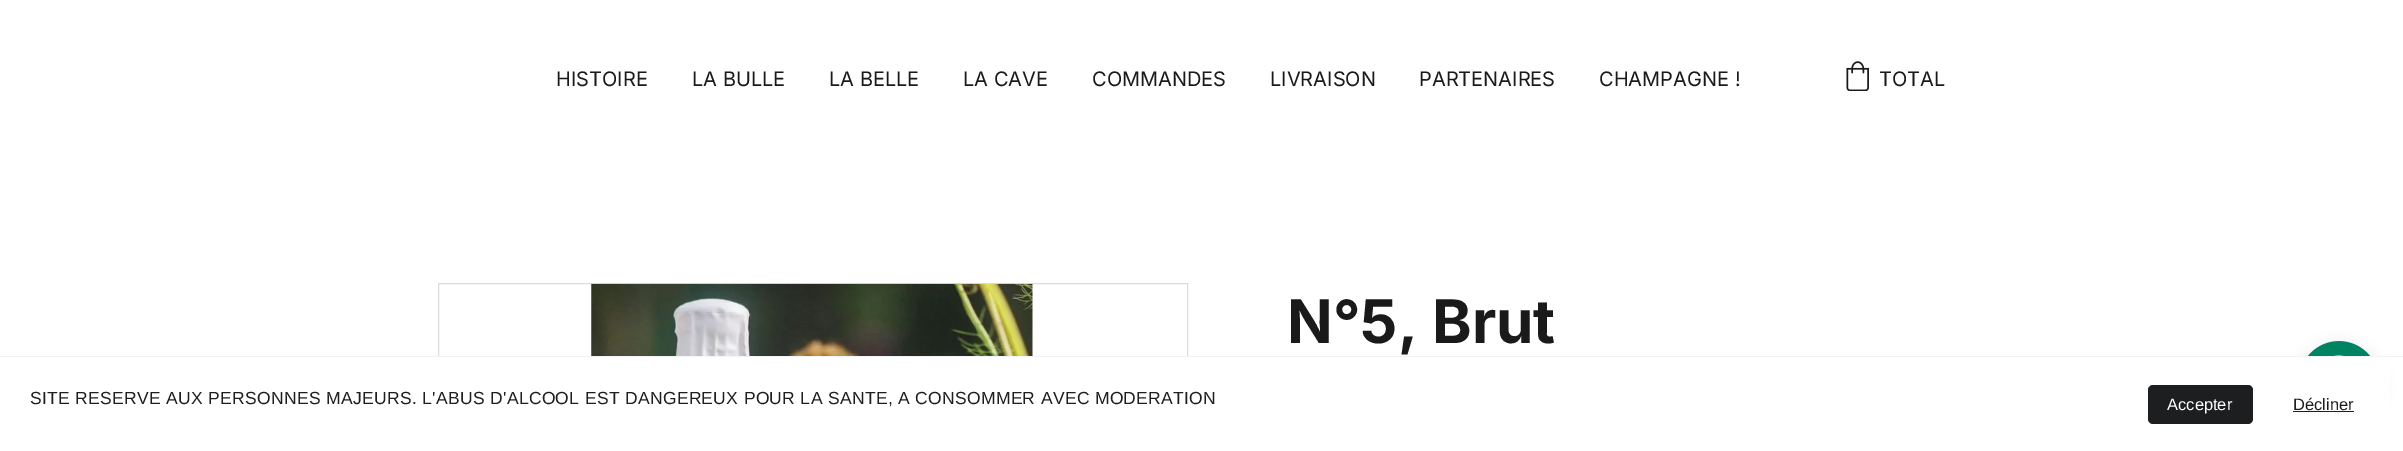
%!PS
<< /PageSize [2403 451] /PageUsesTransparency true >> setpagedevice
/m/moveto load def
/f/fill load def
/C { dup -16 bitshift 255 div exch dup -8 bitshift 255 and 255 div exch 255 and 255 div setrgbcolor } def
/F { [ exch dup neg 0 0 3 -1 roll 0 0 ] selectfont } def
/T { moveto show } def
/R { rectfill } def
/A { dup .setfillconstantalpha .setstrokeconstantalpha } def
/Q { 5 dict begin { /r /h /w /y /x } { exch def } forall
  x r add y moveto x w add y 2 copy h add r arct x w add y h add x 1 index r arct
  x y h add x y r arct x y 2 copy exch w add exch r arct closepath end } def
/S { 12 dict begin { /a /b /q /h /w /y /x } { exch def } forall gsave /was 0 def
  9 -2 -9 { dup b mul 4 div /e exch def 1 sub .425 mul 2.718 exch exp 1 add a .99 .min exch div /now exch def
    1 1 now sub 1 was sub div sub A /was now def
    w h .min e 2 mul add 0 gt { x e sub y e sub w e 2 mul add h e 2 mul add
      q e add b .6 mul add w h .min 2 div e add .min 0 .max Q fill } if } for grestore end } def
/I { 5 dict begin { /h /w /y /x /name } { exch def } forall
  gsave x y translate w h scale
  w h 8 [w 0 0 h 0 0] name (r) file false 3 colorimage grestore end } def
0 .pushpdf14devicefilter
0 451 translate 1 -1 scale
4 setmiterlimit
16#FFFFFF C
0 0 2403 451 R
/Inter-Regular 20 F
16#1A1A1A C
(HISTOIRE) 556 86 T
(LA BULLE) 692 86 T
(LA BELLE) 829 86 T
(LA CAVE) 963 86 T
(COMMANDES) 1092 86 T
(LIVRAISON) 1270 86 T
(PARTENAIRES) 1419 86 T
(CHAMPAGNE !) 1599 86 T
(1.rgb) 1846 61 23 30 I
(TOTAL) 1879 86 T
16#DADCE0 C
438.5 283.5 749 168 rectstroke
(2.rgb) 591 283 442 73 I
/Inter-Bold 60 F
16#1A1A1A C
(N°5, Brut) 1287 343 T
16#000000 C
2299 346 80 80 40 7.5 .15 S
16#FFFFFF C
438 357 1952 94 R
16#F2F3F6 C
0 356 2403 1 R
/LiberationSans-Regular 17.5 F
16#1D1E20 C
30 404 m .31 0 (SITE RESERVE AUX PERSONNES MAJEURS. L'ABUS D'ALCOOL EST DANGEREUX POUR LA SANTE, A CONSOMMER AVEC MODERATION) ashow
2148 385 105 39 5 Q f
/LiberationSans-Regular 16.5 F
16#FFFFFF C
(Accepter) 2167 410 T
16#1D1E20 C
(Décliner) 2293 410 T
2293 411 61 1 R
(3.rgb) 2307 341 64 15 I
.poppdf14devicefilter showpage
